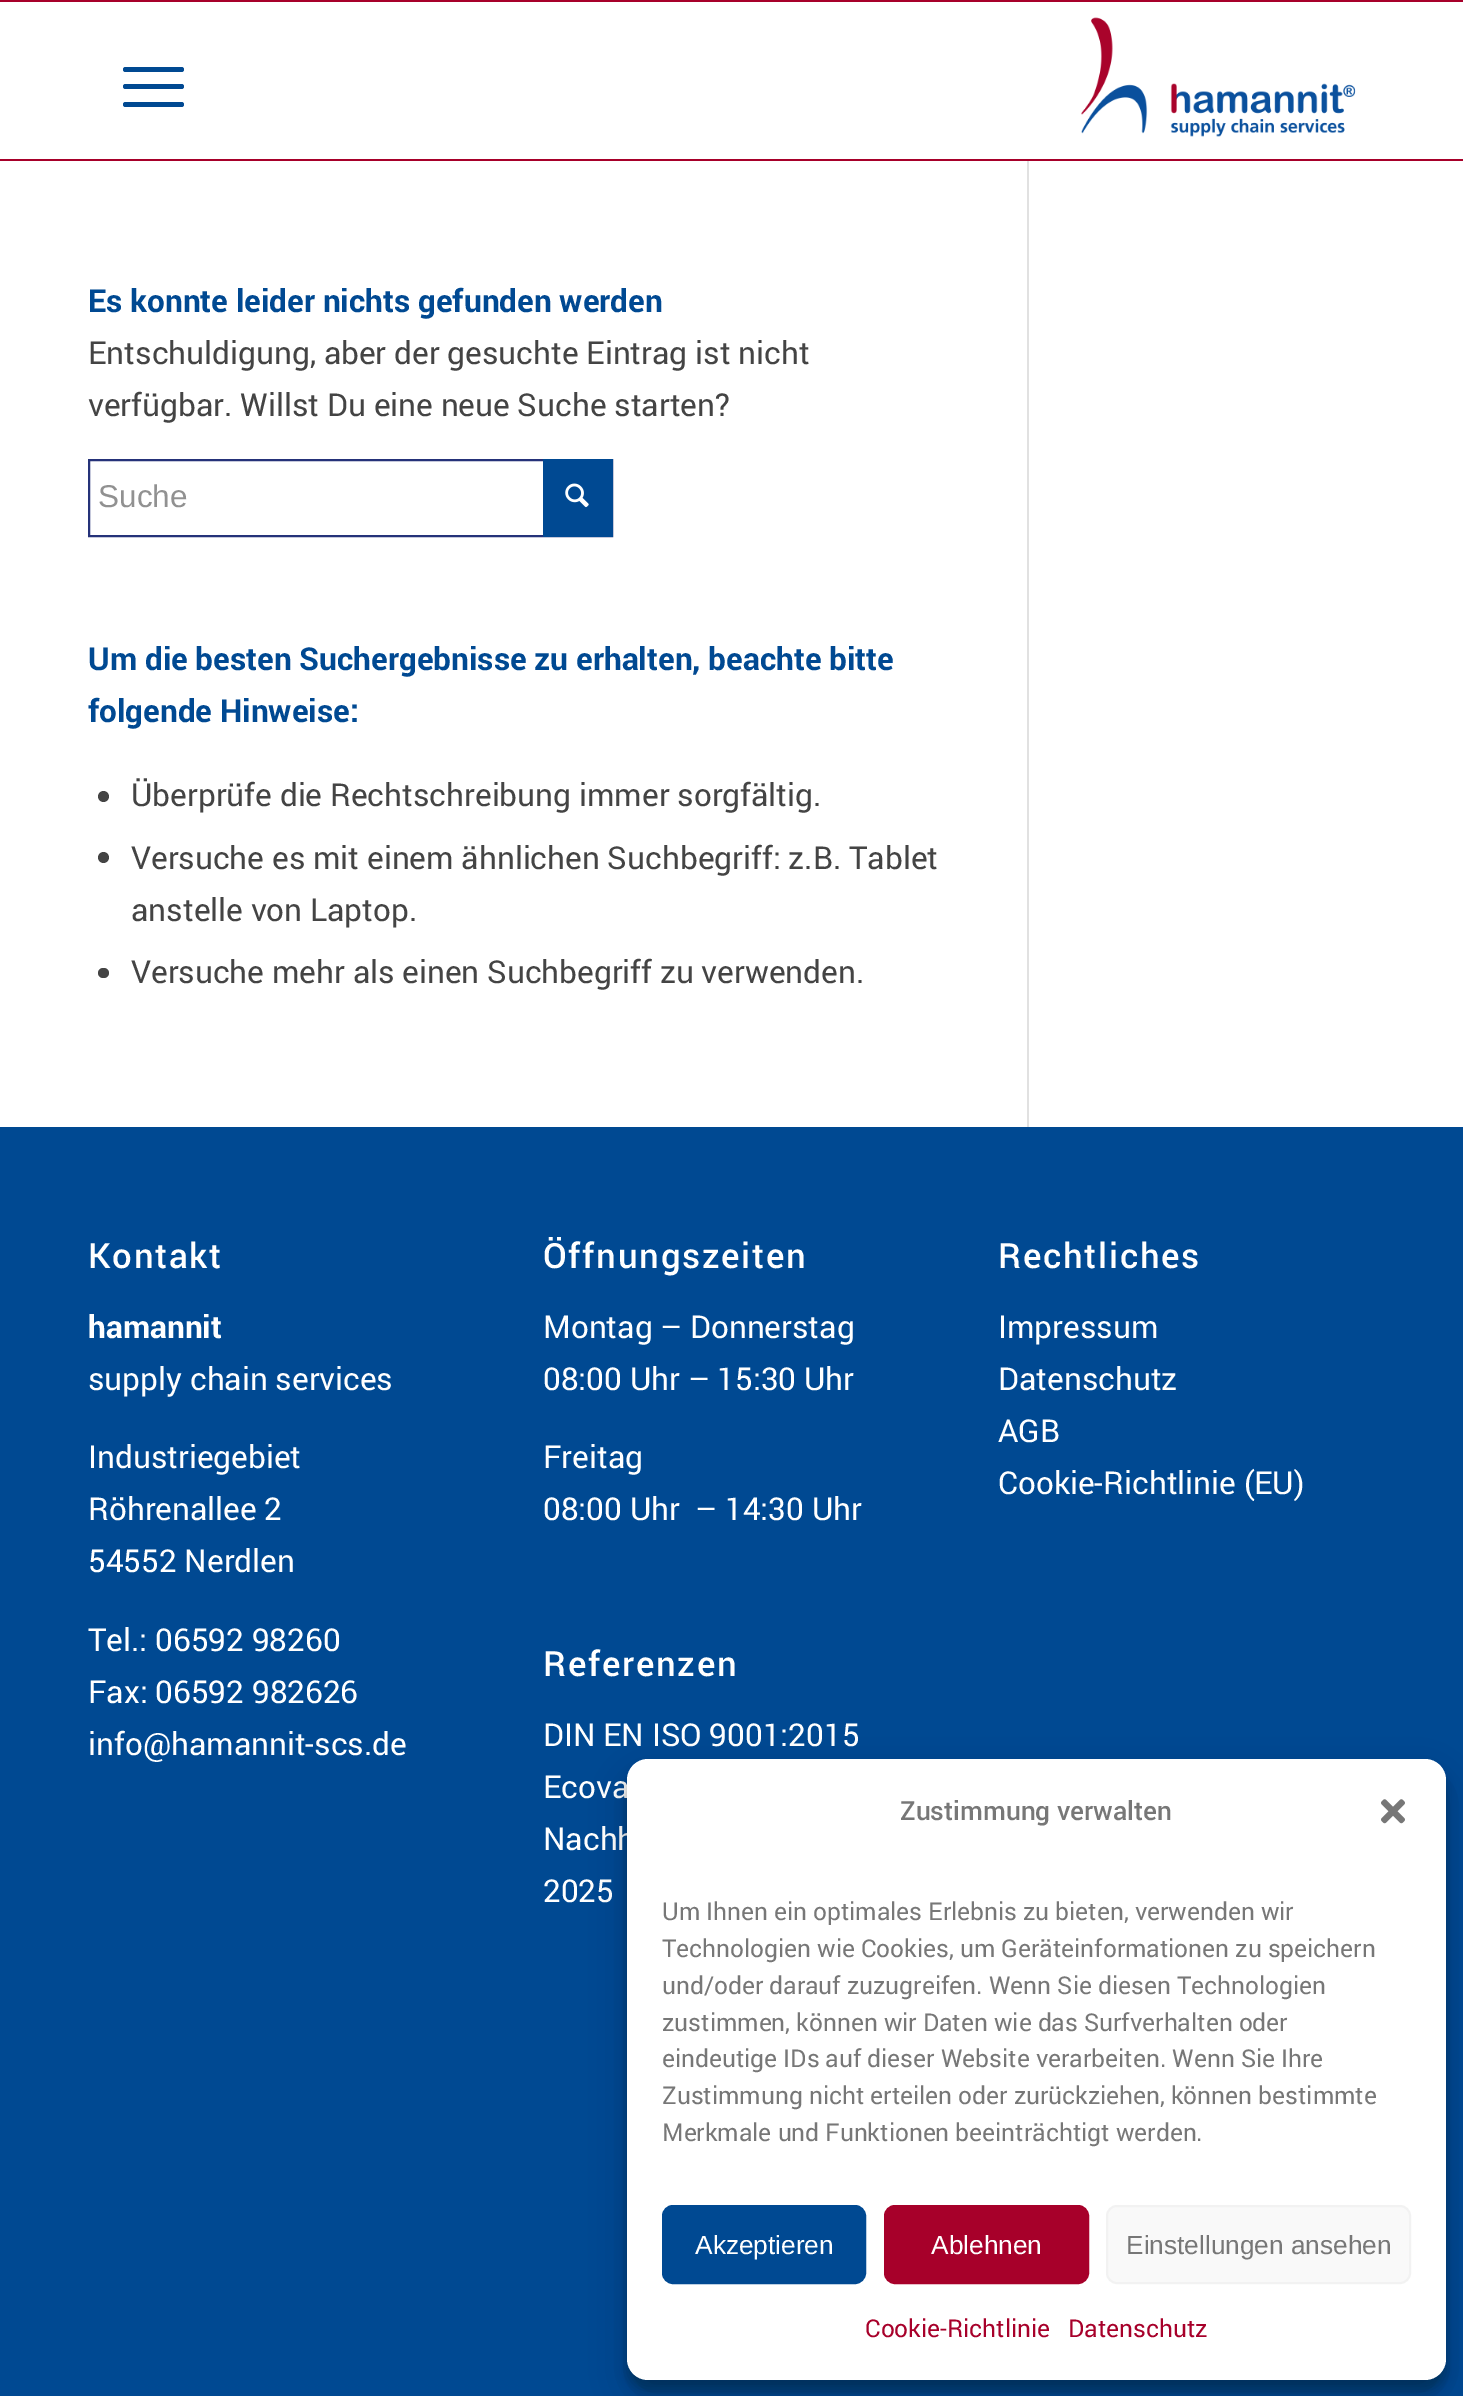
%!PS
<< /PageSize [1463 2396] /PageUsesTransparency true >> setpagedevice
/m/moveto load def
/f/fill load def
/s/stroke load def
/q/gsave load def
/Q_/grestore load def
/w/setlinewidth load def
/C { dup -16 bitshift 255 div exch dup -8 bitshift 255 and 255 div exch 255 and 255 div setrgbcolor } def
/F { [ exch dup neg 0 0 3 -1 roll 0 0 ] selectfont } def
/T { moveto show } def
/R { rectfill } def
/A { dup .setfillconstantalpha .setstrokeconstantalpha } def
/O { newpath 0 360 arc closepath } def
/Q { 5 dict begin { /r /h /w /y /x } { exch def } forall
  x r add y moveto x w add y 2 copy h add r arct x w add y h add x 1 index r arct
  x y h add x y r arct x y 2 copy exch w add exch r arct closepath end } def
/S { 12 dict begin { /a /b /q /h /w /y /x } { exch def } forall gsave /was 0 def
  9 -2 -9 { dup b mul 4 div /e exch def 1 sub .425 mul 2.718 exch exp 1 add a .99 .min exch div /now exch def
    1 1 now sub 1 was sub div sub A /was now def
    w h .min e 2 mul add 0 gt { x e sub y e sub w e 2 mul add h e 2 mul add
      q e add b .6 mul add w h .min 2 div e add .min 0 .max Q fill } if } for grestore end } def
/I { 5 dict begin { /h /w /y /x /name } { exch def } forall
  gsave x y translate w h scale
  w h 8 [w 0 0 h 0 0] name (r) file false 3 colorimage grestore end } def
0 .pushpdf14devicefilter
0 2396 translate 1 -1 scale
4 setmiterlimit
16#004992 C
0 0 1463 2396 R
16#FFFFFF C
0 2 1463 1125 R
16#A7002A C
0 0 1463 2 R
0 159 1463 2 R
16#004992 C
123 84 61 5 2.5 Q f
123 67 61 5 2.5 Q f
123 102 61 5 2.5 Q f
(1.rgb) 1081 17 275 120 I
16#E1E1E1 C
1027 161 2 966 R
/Roboto-Bold 31.5 F
16#004992 C
(Es konnte leider nichts gefunden werden) 88 312 T
/Roboto-Regular 31.5 F
16#444444 C
(Entschuldigung, aber der gesuchte Eintrag ist nicht) 88 364 T
(verfügbar. Willst Du eine neue Suche starten?) 88 416 T
16#253279 C
2 w
89 460 523 76 rectstroke
/LiberationSans-Regular 31.5 F
16#919191 C
(Suche) 98 507 T
16#004992 C
543 459 70 78 R
(2.rgb) 565 483 24 25 I
/Roboto-Bold 31.5 F
(Um die besten Suchergebnisse zu erhalten, beachte bitte) 88 670 T
(folgende Hinweise:) 88 722 T
16#444444 C
103.5 796.5 5.5 O f
/Roboto-Regular 31.5 F
(Überprüfe die Rechtschreibung immer sorgfältig.) 131 806 T
103.5 857.5 5.5 O f
(Versuche es mit einem ähnlichen Suchbegriff: z.B. Tablet) 131 869 T
(anstelle von Laptop.) 131 921 T
98 968 11 10 5 Q f
(Versuche mehr als einen Suchbegriff zu verwenden.) 131 983 T
/Roboto-Medium 34.75 F
16#FFFFFF C
88 1268 m 1.75 0 (Kontakt) ashow
/Roboto-Bold 31.5 F
(hamannit) 88 1338 T
/Roboto-Regular 31.5 F
(supply chain services) 88 1390 T
(Industriegebiet) 88 1468 T
(Röhrenallee 2) 88 1520 T
(54552 Nerdlen) 88 1572 T
(Tel.: 06592 98260) 88 1651 T
(Fax: 06592 982626) 88 1703 T
(info@hamannit-scs.de) 88 1755 T
/Roboto-Medium 34.75 F
543 1268 m 1.75 0 (Öffnungszeiten) ashow
/Roboto-Regular 31.5 F
(Montag – Donnerstag) 543 1338 T
(08:00 Uhr – 15:30 Uhr) 543 1390 T
(Freitag) 543 1468 T
(08:00 Uhr  – 14:30 Uhr) 543 1520 T
/Roboto-Medium 34.75 F
543 1676 m 1.75 0 (Referenzen) ashow
/Roboto-Regular 31.5 F
(DIN EN ISO 9001:2015) 543 1746 T
(Ecova) 543 1798 T
(Nachh) 543 1850 T
(2025) 543 1902 T
/Roboto-Medium 34.75 F
998 1268 m 1.75 0 (Rechtliches) ashow
/Roboto-Regular 31.5 F
(Impressum) 998 1338 T
(Datenschutz) 998 1390 T
(AGB) 998 1442 T
(Cookie-Richtlinie \(EU\)) 998 1494 T
16#000000 C
627 1769 819 622 21 5 .23 S
627 1776 819 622 21 17.5 .19 S
16#FFFFFF C
627 1759 819 621 21 Q f
/Roboto-Medium 26.25 F
16#777777 C
(Zustimmung verwalten) 900 1820 T
(3.rgb) 1381 1799 24 25 I
/Roboto-Regular 24.5 F
(Um Ihnen ein optimales Erlebnis zu bieten, verwenden wir) 662 1920 T
(Technologien wie Cookies, um Geräteinformationen zu speichern) 662 1957 T
(und/oder darauf zuzugreifen. Wenn Sie diesen Technologien) 662 1994 T
(zustimmen, können wir Daten wie das Surfverhalten oder) 662 2031 T
(eindeutige IDs auf dieser Website verarbeiten. Wenn Sie Ihre) 662 2067 T
(Zustimmung nicht erteilen oder zurückziehen, können bestimmte) 662 2104 T
(Merkmale und Funktionen beeinträchtigt werden.) 662 2141 T
16#004992 C
663 2206 202 77 10 Q q f Q_
s
/LiberationSans-Regular 26.25 F
16#FFFFFF C
(Akzeptieren) 695 2254 T
16#A7002A C
885 2206 203 77 10 Q q f Q_
s
16#FFFFFF C
(Ablehnen) 931 2254 T
16#F9F9F9 C
1107 2206 303 77 10 Q q f Q_
16#F2F2F2 C
s
16#777777 C
(Einstellungen ansehen) 1126 2254 T
/Roboto-Regular 24.5 F
16#A7002A C
(Cookie-Richtlinie) 865 2337 T
(Datenschutz) 1068 2337 T
.poppdf14devicefilter showpage
